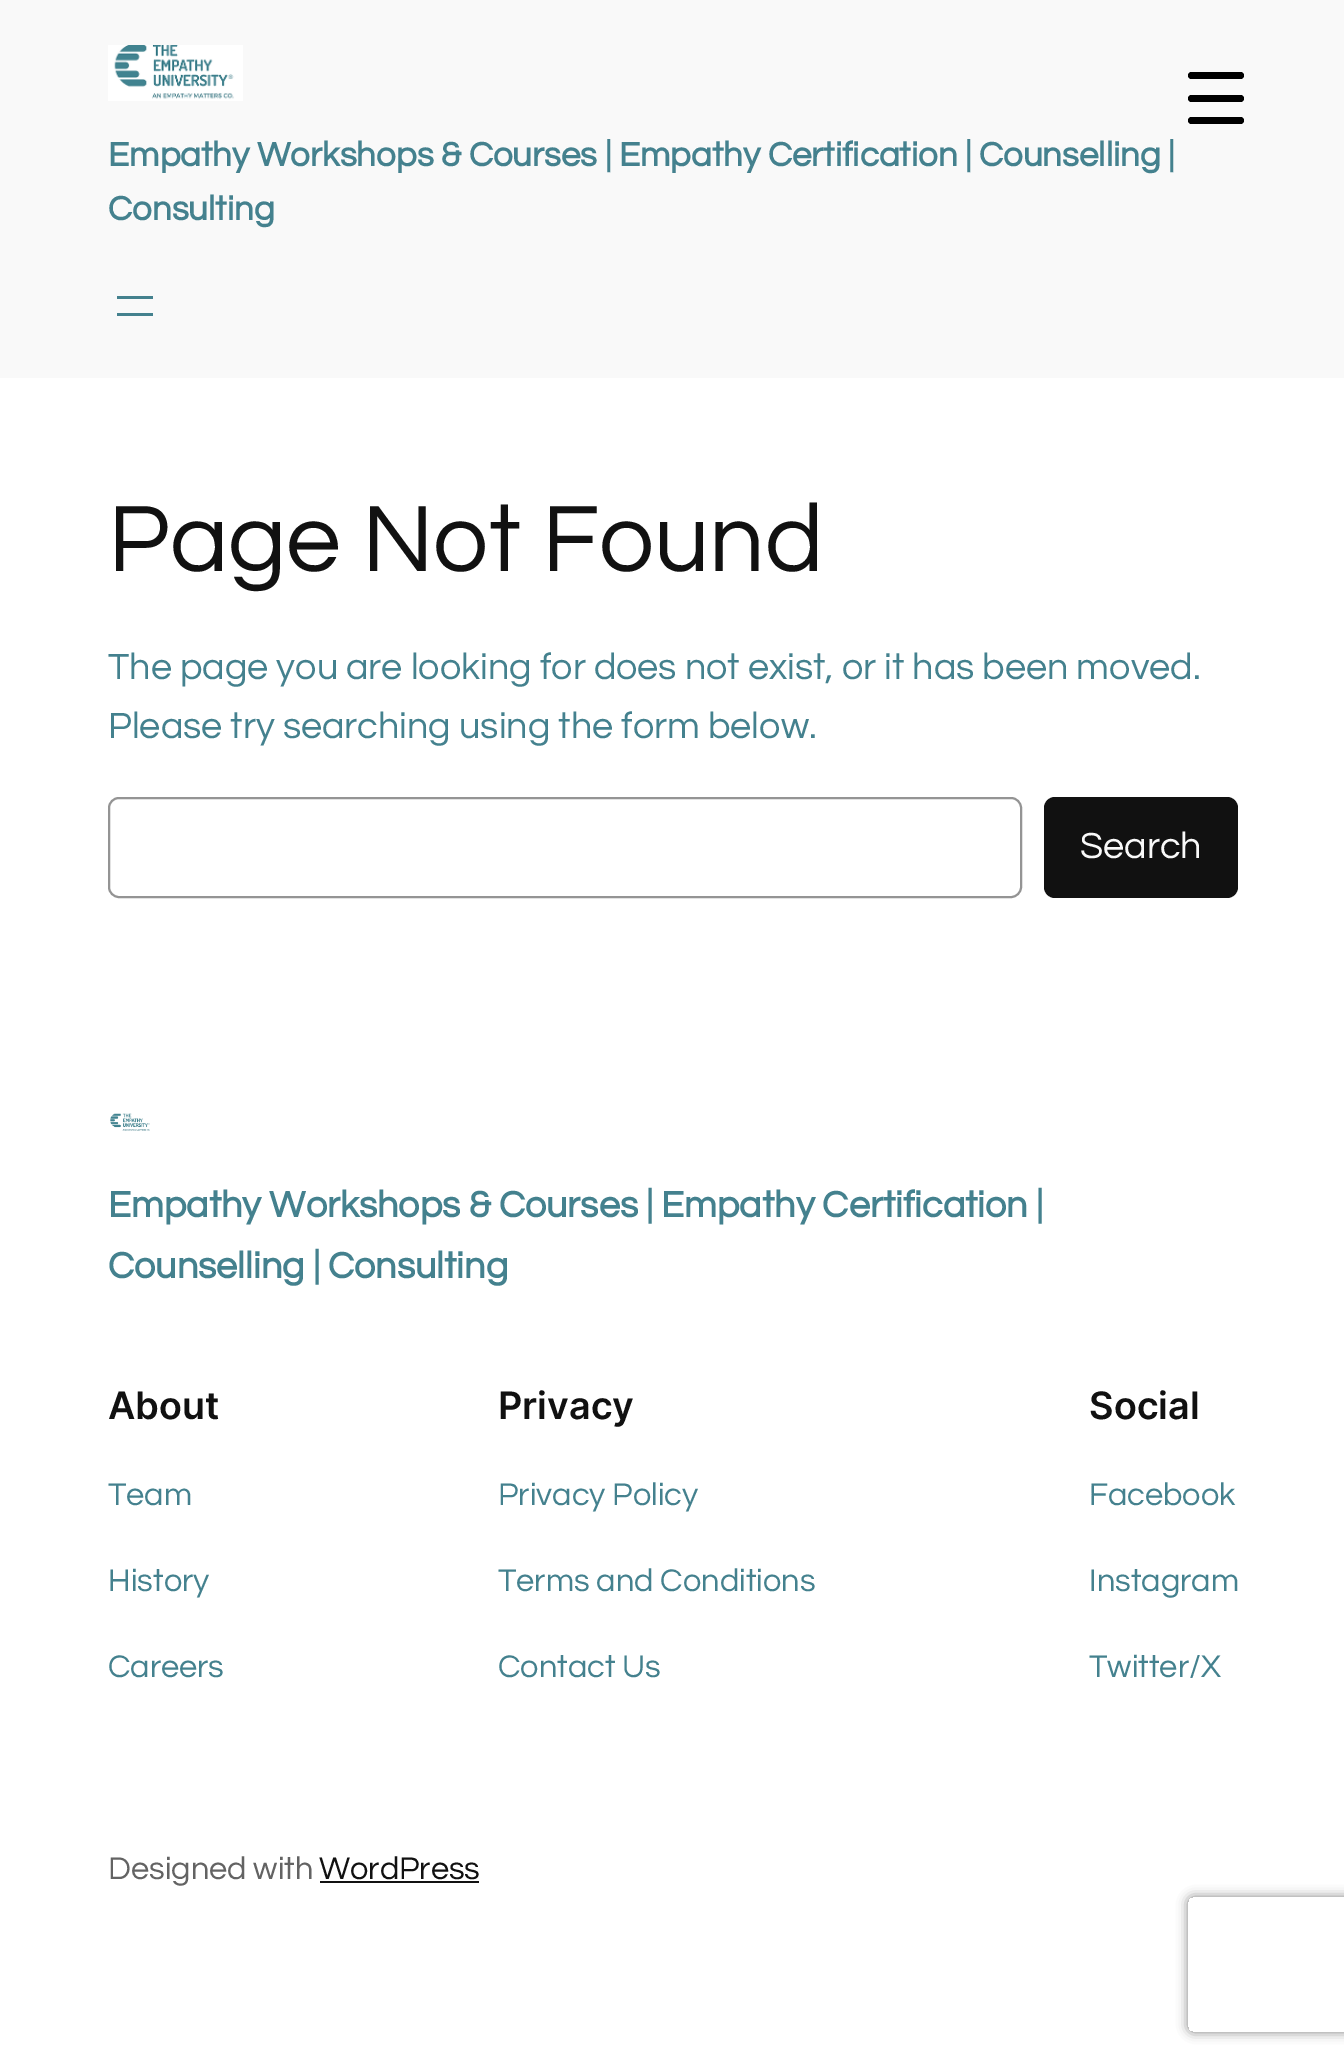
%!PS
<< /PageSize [1344 2062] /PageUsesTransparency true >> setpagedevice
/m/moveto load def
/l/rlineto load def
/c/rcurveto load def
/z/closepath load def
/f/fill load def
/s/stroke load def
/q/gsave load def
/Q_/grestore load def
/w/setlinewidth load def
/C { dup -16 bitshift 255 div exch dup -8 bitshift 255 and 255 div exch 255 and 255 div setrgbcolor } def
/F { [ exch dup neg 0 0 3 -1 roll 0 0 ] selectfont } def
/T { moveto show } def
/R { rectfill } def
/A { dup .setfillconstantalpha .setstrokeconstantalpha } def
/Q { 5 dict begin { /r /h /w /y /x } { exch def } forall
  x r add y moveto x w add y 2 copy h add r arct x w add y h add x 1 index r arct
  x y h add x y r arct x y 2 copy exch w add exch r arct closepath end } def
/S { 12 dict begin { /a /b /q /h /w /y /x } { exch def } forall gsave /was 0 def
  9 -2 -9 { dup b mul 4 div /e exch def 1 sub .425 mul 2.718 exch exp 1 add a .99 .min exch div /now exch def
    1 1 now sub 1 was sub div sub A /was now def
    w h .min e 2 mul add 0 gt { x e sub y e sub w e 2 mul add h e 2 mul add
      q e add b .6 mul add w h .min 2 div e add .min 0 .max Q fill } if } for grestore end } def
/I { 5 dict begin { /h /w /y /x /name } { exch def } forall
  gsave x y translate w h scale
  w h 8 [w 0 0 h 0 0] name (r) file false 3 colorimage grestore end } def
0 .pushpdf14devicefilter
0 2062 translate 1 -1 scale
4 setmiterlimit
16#FFFFFF C
0 0 1344 2062 R
16#F9F9F9 C
0 0 1344 378 R
16#000000 C
1188 95 56 7 3.5 Q f
1188 72 56 7 3.5 Q f
1188 117 56 7 3.5 Q f
(1.rgb) 108 45 135 56 I
/Questrial-Bold 34.9 F
16#44818E C
(Empathy Workshops & Courses | Empathy Certification | Counselling |) 108 166 T
(Consulting) 108 220 T
117 296 36 3 R
117 313 36 3 R
/Questrial-Regular 98 F
16#111111 C
(Page Not Found) 108 571 T
/Questrial-Regular 37.8 F
16#44818E C
(The page you are looking for does not exist, or it has been moved.) 108 679 T
(Please try searching using the form below.) 108 738 T
16#949494 C
2 w
109 798 912 99 10 Q s
16#111111 C
1044 797 194 101 11 Q f
16#F9F9F9 C
(Search) 1080 858 T
(2.rgb) 110 1113 40 18 I
/Questrial-Bold 37.8 F
16#44818E C
(Empathy Workshops & Courses | Empathy Certification |) 108 1217 T
(Counselling | Consulting) 108 1278 T
/Inter-SemiBold 37.8 F
16#111111 C
(About) 108 1419 T
/Questrial-Regular 32.5 F
16#44818E C
(Team) 108 1505 T
(History) 108 1591 T
(Careers) 108 1677 T
/Inter-SemiBold 37.8 F
16#111111 C
(Privacy) 498 1419 T
/Questrial-Regular 32.5 F
16#44818E C
(Privacy Policy) 498 1505 T
(Terms and Conditions) 498 1591 T
(Contact Us) 498 1677 T
/Inter-SemiBold 37.8 F
16#111111 C
(Social) 1089 1419 T
/Questrial-Regular 32.5 F
16#44818E C
(Facebook) 1089 1505 T
(Instagram) 1089 1591 T
(Twitter/X) 1089 1677 T
16#636363 C
(Designed with) 108 1879 T
16#111111 C
(WordPress) 319 1879 T
320 1881 159 2 R
q
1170 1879 m 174 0 l 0 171 l -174 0 l z 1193 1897 m 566 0 l 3 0 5 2 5 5 c 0 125 l 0 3 -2 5 -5 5 c -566 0 l -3 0 -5 -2 -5 -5 c 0 -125 l 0 -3 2 -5 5 -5 c z eoclip newpath
16#808080 C
1188 1897 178 135 5 5.5 1 S
Q_
.poppdf14devicefilter showpage
